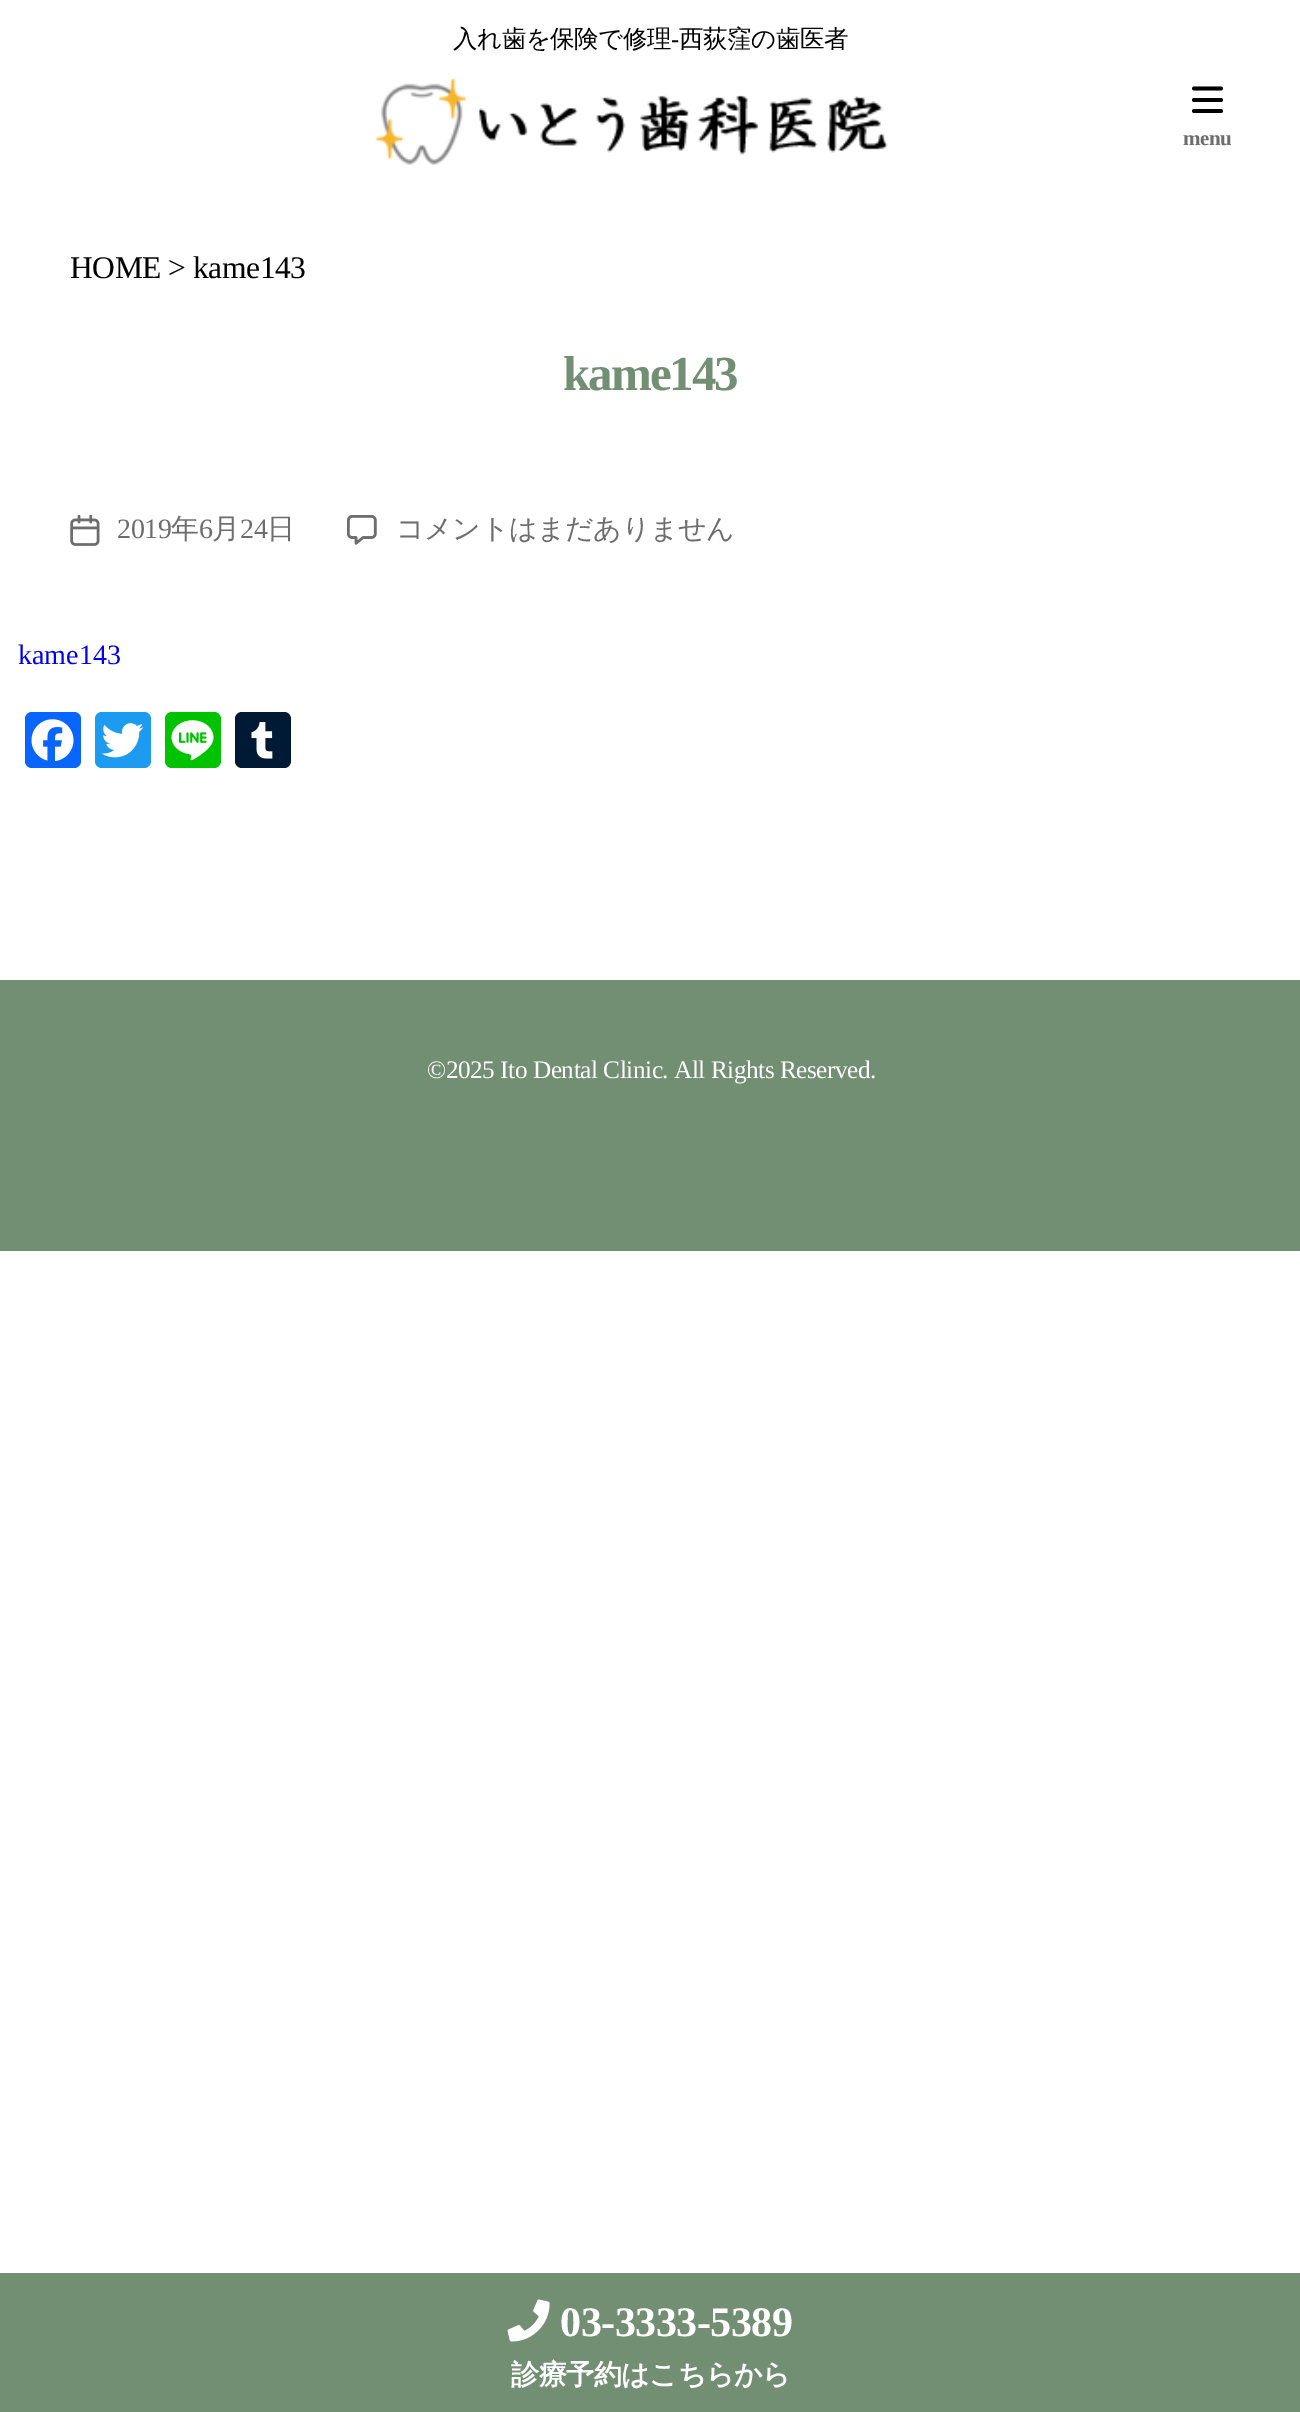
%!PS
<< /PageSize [1300 2412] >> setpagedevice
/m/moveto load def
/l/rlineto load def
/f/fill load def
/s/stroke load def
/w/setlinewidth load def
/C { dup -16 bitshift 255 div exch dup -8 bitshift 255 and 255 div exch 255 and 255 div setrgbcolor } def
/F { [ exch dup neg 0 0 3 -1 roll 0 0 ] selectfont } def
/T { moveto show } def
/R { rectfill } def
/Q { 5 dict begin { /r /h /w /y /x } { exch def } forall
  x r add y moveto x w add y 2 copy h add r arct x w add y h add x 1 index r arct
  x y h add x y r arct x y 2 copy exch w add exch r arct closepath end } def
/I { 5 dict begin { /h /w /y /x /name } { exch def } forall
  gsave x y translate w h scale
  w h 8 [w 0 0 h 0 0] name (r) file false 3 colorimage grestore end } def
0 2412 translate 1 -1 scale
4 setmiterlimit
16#FFFFFF C
0 0 1300 2412 R
/WenQuanYiZenHei-Medium 24.5 F
16#000000 C
453 47 m -.45 0 (入れ歯を保険で修理) ashow
/LiberationSerif-Regular 24.5 F
671 47 m -.45 0 (-) ashow
/WenQuanYiZenHei-Medium 24.5 F
679 47 m -.45 0 (西荻窪の歯医者) ashow
(1.rgb) 375 78 513 87 I
3.8 w
1 setlinecap
1 setlinejoin
1194 88.5 m 27 0 l 1194 100 m 27 0 l 1194 111 m 27 0 l s
/LiberationSerif-Bold 21 F
16#6D6D6D C
1183 145 m -.45 0 (menu) ashow
/LiberationSerif-Regular 31.5 F
16#000000 C
70 278 m -.45 0 (HOME > kame143) ashow
/LiberationSerif-Bold 49 F
16#738F73 C
563 390 m -2 0 (kame143) ashow
(2.rgb) 70 515 30 31 I
/LiberationSerif-Regular 28 F
16#6D6D6D C
117 538 m -.45 0 (2019) ashow
/WenQuanYiZenHei-Medium 28 F
171 538 m -.45 0 (年) ashow
/LiberationSerif-Regular 28 F
199 538 m -.45 0 (6) ashow
/WenQuanYiZenHei-Medium 28 F
212 538 m -.45 0 (月) ashow
/LiberationSerif-Regular 28 F
240 538 m -.45 0 (24) ashow
/WenQuanYiZenHei-Medium 28 F
267 538 m -.45 0 (日) ashow
(3.rgb) 347 515 30 30 I
396 538 m -.45 0 (コメントはまだありません) ashow
/LiberationSerif-Regular 28 F
16#0000EE C
(kame143) 18 664 T
16#0866FF C
25 712 56 56 7 Q f
(4.rgb) 31 719 43 43 I
16#1D9BF0 C
95 712 56 56 7 Q f
(5.rgb) 101 723 43 35 I
16#00C300 C
165 712 56 56 7 Q f
(6.rgb) 171 720 43 41 I
16#001935 C
235 712 56 56 7 Q f
(7.rgb) 251 722 22 37 I
16#738F73 C
0 980 1300 271 R
/LiberationSerif-Regular 25.25 F
16#FFFFFF C
427 1078 m -.45 0 (©2025 Ito Dental Clinic. All Rights Reserved.) ashow
16#738F73 C
0 2273 1300 139 R
(8.rgb) 507 2299 43 43 I
/LiberationSerif-Bold 42 F
16#FFFFFF C
560 2336 m -.45 0 (03-3333-5389) ashow
/WenQuanYiZenHei-Bold 28 F
511 2384 m -.45 0 (診療予約はこちらから) ashow
showpage
